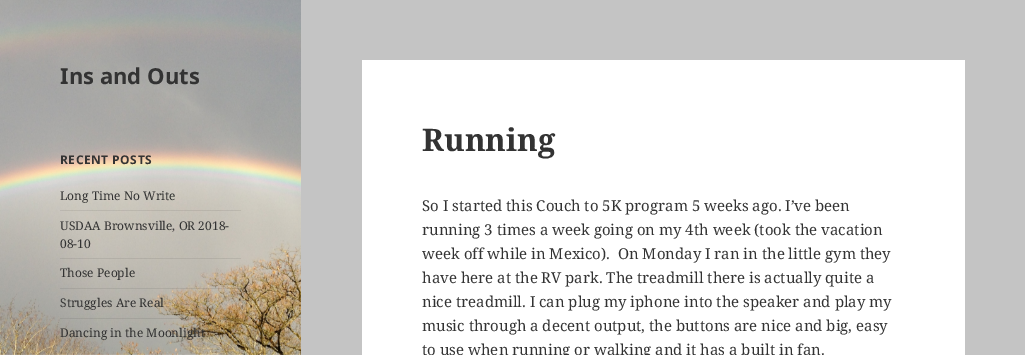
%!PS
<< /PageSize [1025 355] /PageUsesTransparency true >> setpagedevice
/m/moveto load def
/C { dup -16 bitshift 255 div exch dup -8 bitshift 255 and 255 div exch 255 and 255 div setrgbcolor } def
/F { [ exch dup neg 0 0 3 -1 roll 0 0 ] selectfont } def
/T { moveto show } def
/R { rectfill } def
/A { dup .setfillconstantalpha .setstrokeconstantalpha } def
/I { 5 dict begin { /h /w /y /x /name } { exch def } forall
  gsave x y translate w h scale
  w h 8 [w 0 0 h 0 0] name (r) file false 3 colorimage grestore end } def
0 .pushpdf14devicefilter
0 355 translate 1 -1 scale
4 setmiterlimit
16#C4C4C4 C
0 0 1025 355 R
(1.rgb) 0 0 301 355 I
/NotoSans-Bold 22 F
16#333333 C
(Ins and Outs) 60 84 T
/NotoSans-Bold 12 F
60 164 m .5 0 (RECENT POSTS) ashow
/NotoSerif-Regular 12 F
(Long Time No Write) 60 200 T
0.1 A
60 210 181 1 R
1 A
(USDAA Brownsville, OR 2018-) 60 230 T
(08-10) 60 248 T
0.1 A
60 258 181 1 R
1 A
(Those People) 60 277 T
0.1 A
60 288 181 1 R
1 A
(Struggles Are Real) 60 307 T
0.1 A
60 318 181 1 R
1 A
(Dancing in the Moonlight) 60 337 T
16#FFFFFF C
362 60 603 295 R
/NotoSerif-Bold 31 F
16#333333 C
(Running) 422 151 T
/NotoSerif-Regular 15 F
(So I started this Couch to 5K program 5 weeks ago. I’ve been) 422 211 T
(running 3 times a week going on my 4th week \(took the vacation) 422 235 T
(week off while in Mexico\).  On Monday I ran in the little gym they) 422 259 T
(have here at the RV park. The treadmill there is actually quite a) 422 283 T
(nice treadmill. I can plug my iphone into the speaker and play my) 422 307 T
(music through a decent output, the buttons are nice and big, easy) 422 331 T
(to use when running or walking and it has a built in fan.) 422 355 T
.poppdf14devicefilter showpage
